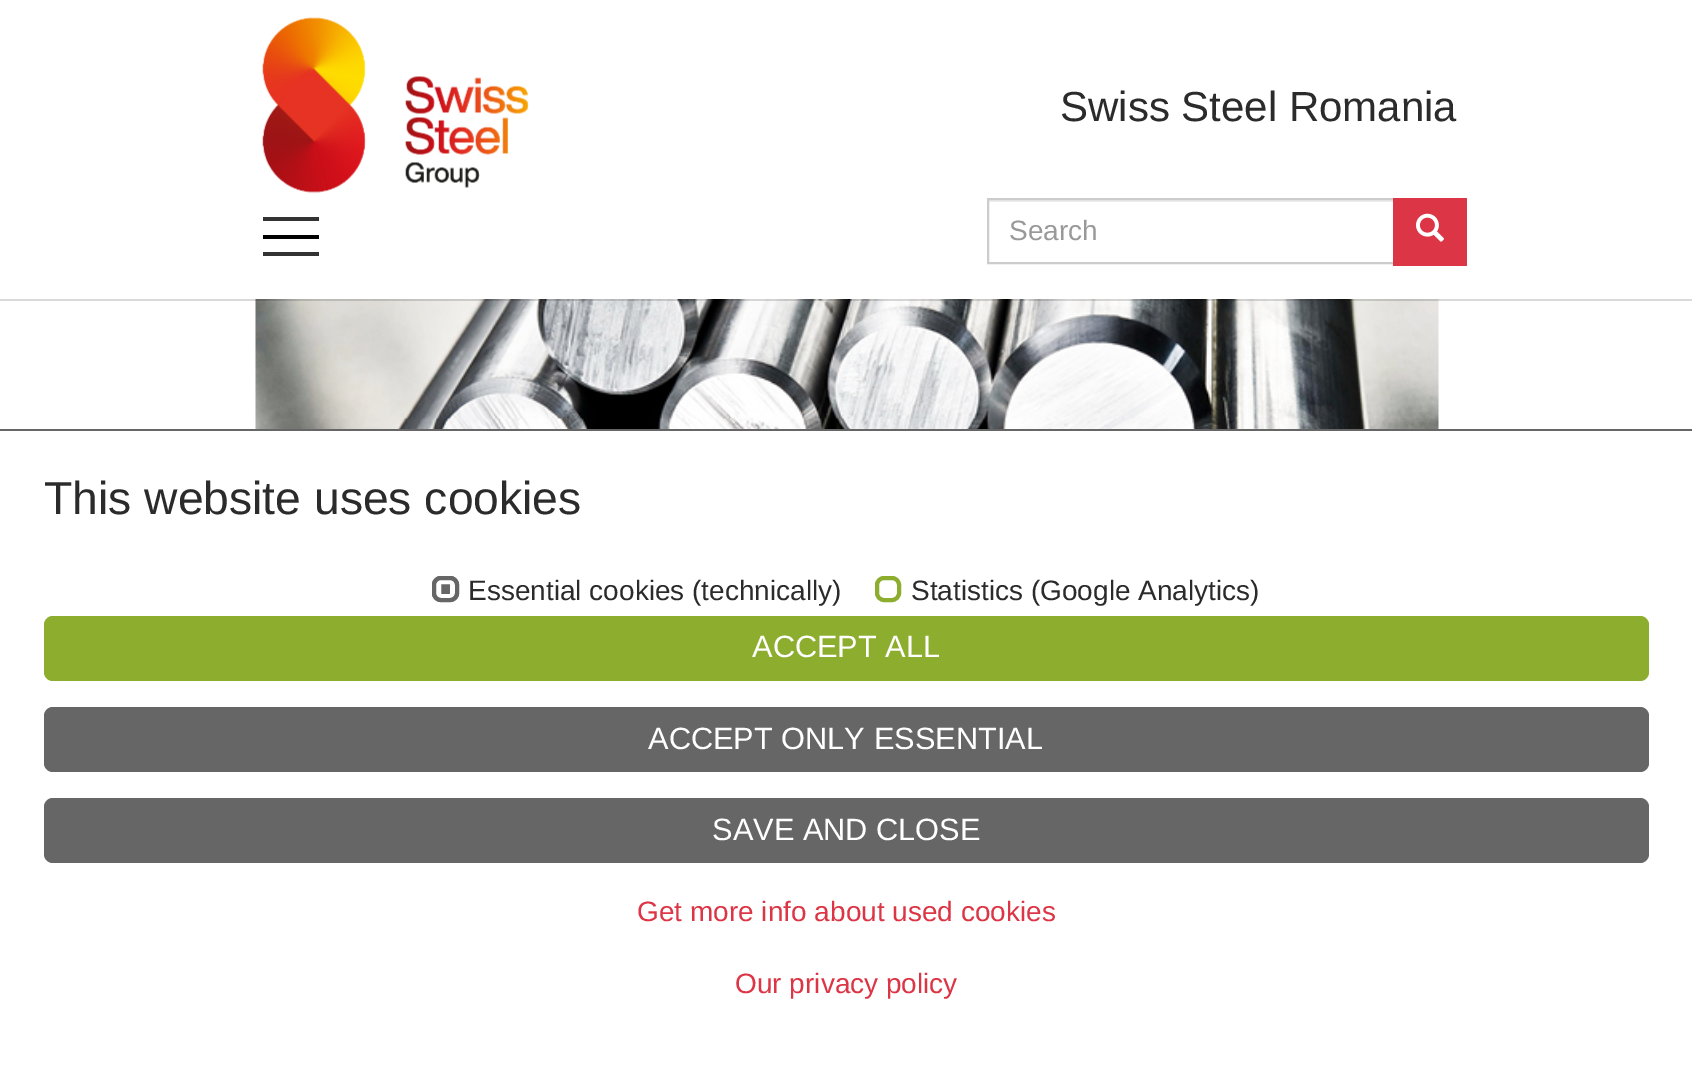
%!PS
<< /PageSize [1692 1077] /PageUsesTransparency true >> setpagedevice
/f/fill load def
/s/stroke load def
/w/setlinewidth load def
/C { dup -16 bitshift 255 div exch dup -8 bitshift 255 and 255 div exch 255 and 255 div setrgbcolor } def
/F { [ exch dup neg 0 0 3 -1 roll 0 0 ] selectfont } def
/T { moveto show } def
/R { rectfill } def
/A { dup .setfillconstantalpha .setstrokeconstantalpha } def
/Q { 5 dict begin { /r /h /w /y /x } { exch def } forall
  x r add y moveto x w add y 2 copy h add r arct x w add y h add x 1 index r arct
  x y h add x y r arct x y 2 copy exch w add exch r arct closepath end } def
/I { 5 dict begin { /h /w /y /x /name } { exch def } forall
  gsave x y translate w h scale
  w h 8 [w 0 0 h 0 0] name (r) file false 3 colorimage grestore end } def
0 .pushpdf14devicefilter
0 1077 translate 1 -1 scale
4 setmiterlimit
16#FFFFFF C
0 0 1692 1077 R
(3.rgb) 255 299 1184 130 I
0.15 A
16#000000 C
0 299 1692 2 R
1 A
263 235 56 4 R
16#333333 C
263 217 56 4 R
263 252 56 4 R
(1.rgb) 262 17 267 176 I
/LiberationSans-Regular 42 F
16#2B2B2B C
(Swiss Steel Romania) 1060 121 T
16#ECECEC C
989 200 404 2 R
16#CCCCCC C
2 w
988 199 406 64 rectstroke
/LiberationSans-Regular 28 F
16#999999 C
(Search) 1009 240 T
16#DC3545 C
1393 198 74 68 R
(2.rgb) 1416 213 28 29 I
16#666666 C
0 429 1692 2 R
/LiberationSans-Regular 46.25 F
16#2B2B2B C
(This website uses cookies) 44 514 T
16#666666 C
432 576 27 26 9 Q f
16#FFFFFF C
5 w
438.5 581.5 14 15 2.5 Q s
16#666666 C
4 w
434 578 23 22 7 Q s
/LiberationSans-Regular 28 F
16#2B2B2B C
(Essential cookies \(technically\)) 468 600 T
16#8CAD2D C
877 578 22 22 7 Q s
16#2B2B2B C
(Statistics \(Google Analytics\)) 911 600 T
16#8CAD2D C
44 616 1605 65 9 Q f
/LiberationSans-Regular 30.75 F
16#FFFFFF C
(ACCEPT ALL) 752 657 T
16#666666 C
44 707 1605 65 9 Q f
16#FFFFFF C
(ACCEPT ONLY ESSENTIAL) 648 749 T
16#666666 C
44 798 1605 65 9 Q f
16#FFFFFF C
(SAVE AND CLOSE) 712 840 T
/LiberationSans-Regular 28 F
16#DC3545 C
(Get more info about used cookies) 637 921 T
(Our privacy policy) 735 993 T
.poppdf14devicefilter showpage
